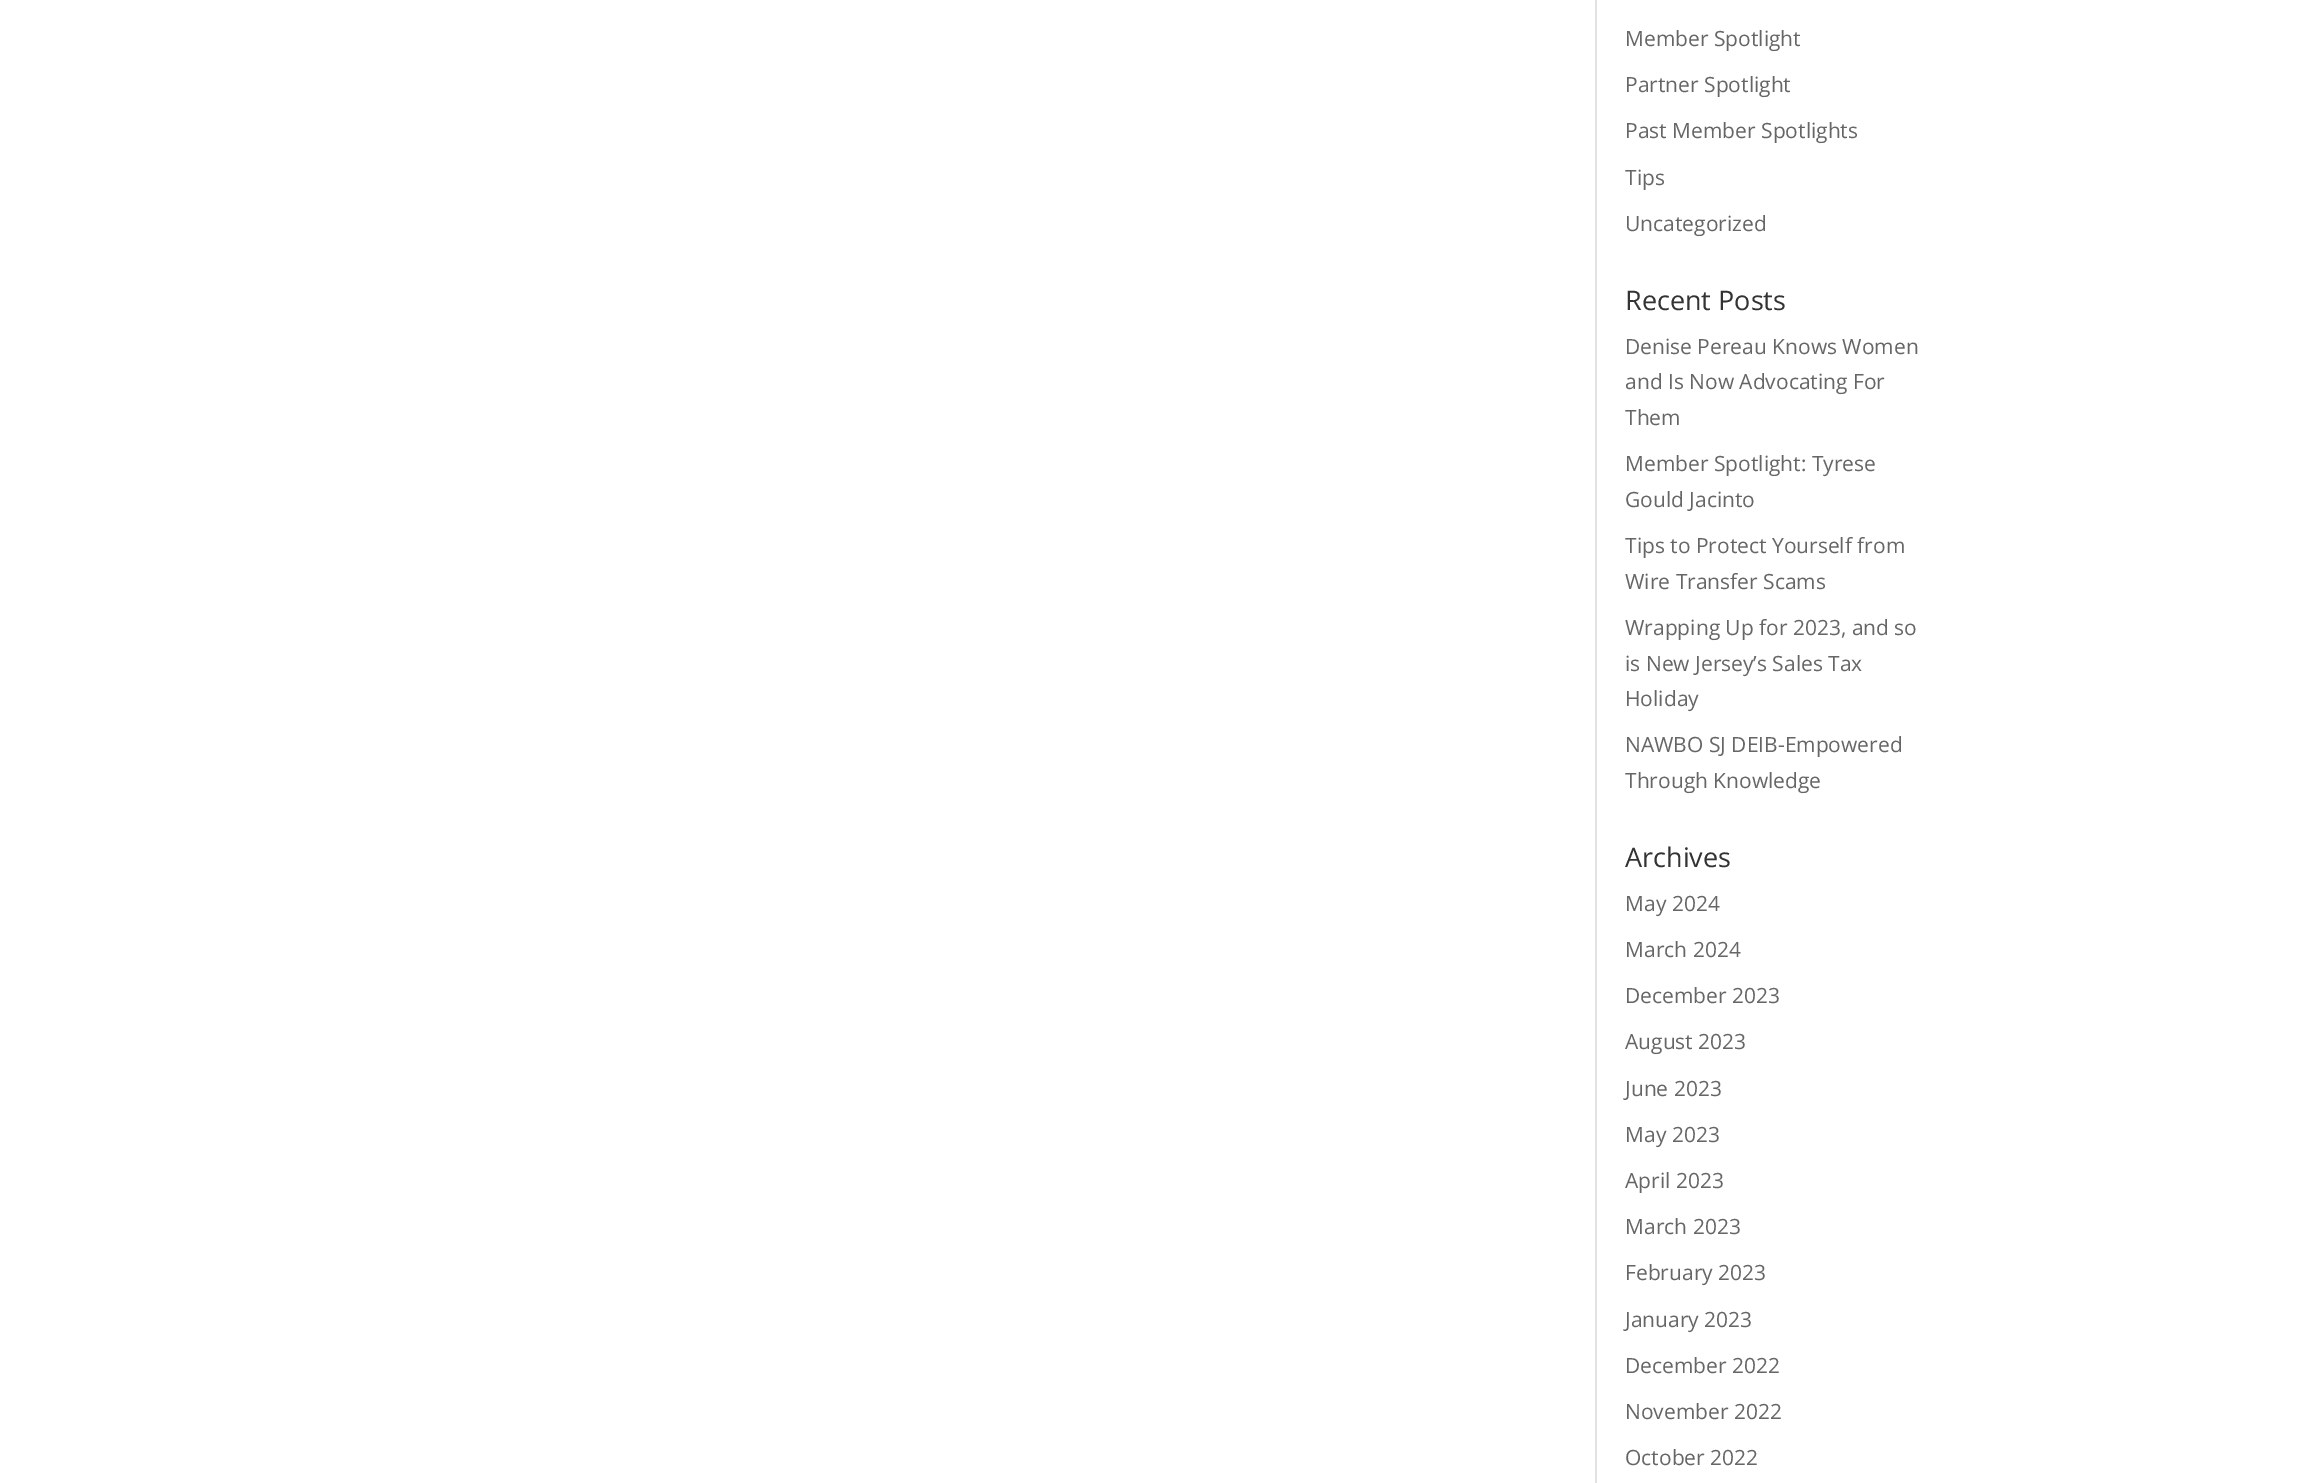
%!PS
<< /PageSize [2310 1483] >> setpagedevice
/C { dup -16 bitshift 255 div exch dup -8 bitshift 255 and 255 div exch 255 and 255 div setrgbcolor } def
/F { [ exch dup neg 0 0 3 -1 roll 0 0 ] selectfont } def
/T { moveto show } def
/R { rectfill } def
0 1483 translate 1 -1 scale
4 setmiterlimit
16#FFFFFF C
0 0 2310 1483 R
16#E2E2E2 C
1595 0 2 1483 R
/OpenSans-Regular 21 F
16#666666 C
(Member Spotlight) 1625 46 T
(Partner Spotlight) 1625 92 T
(Past Member Spotlights) 1625 138 T
(Tips) 1625 185 T
(Uncategorized) 1625 231 T
/OpenSans-Regular 27 F
16#333333 C
(Recent Posts) 1625 310 T
/OpenSans-Regular 21 F
16#666666 C
(Denise Pereau Knows Women) 1625 354 T
(and Is Now Advocating For) 1625 389 T
(Them) 1625 425 T
(Member Spotlight: Tyrese) 1625 471 T
(Gould Jacinto) 1625 507 T
(Tips to Protect Yourself from) 1625 553 T
(Wire Transfer Scams) 1625 589 T
(Wrapping Up for 2023, and so) 1625 635 T
(is New Jersey’s Sales Tax) 1625 671 T
(Holiday) 1625 706 T
(NAWBO SJ DEIB-Empowered) 1625 752 T
(Through Knowledge) 1625 788 T
/OpenSans-Regular 27 F
16#333333 C
(Archives) 1625 867 T
/OpenSans-Regular 21 F
16#666666 C
(May 2024) 1625 911 T
(March 2024) 1625 957 T
(December 2023) 1625 1003 T
(August 2023) 1625 1049 T
(June 2023) 1625 1096 T
(May 2023) 1625 1142 T
(April 2023) 1625 1188 T
(March 2023) 1625 1234 T
(February 2023) 1625 1280 T
(January 2023) 1625 1327 T
(December 2022) 1625 1373 T
(November 2022) 1625 1419 T
(October 2022) 1625 1465 T
showpage
